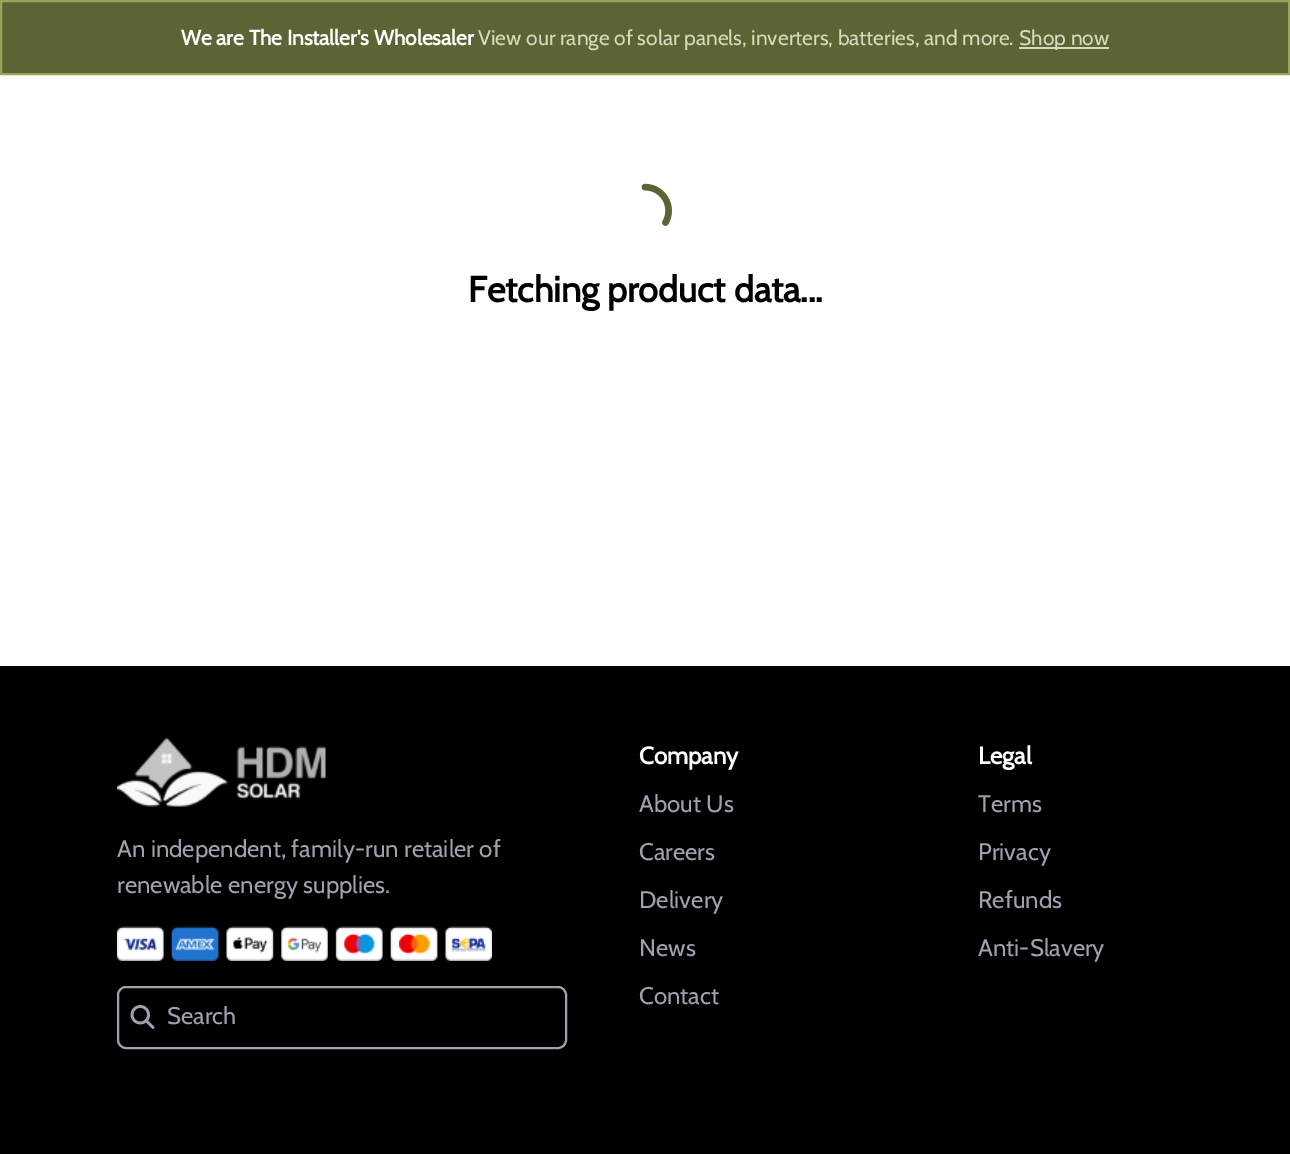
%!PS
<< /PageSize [1290 1154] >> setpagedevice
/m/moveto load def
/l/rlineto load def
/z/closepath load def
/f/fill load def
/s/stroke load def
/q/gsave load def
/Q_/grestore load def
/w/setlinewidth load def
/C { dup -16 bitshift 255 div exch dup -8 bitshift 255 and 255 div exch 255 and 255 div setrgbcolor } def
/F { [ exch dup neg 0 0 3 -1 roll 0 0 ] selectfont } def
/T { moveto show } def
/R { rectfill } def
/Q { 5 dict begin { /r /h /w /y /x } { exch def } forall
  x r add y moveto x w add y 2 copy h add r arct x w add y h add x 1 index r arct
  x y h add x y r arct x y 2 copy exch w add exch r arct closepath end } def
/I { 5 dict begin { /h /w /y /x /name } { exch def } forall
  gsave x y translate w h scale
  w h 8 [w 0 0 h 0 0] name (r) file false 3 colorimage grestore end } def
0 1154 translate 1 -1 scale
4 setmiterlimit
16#FFFFFF C
0 0 1290 1154 R
16#5B6434 C
1 1 m 1288 0 l 0 73 l -1288 0 l z q f Q_
16#97A757 C
2 w
s
/Cabin-Bold 21 F
16#FFFFFF C
(We are The Installer's Wholesaler) 181 45 T
/Cabin-Regular 21 F
16#D5DCBB C
(View our range of solar panels, inverters, batteries, and more.) 478 45 T
1019 47 90 2 R
(Shop now) 1019 45 T
(1.rgb) 641 183 31 43 I
/Cabin-Bold 36 F
16#000000 C
(Fetching product data...) 468 302 T
0 666 1290 488 R
(2.rgb) 117 737 209 70 I
/Cabin-Regular 24 F
16#9CA3AF C
(An independent, family-run retailer of) 117 857 T
(renewable energy supplies.) 117 893 T
(3.rgb) 117 926 375 35 I
118 987 448 61 8 Q s
(4.rgb) 130 1005 25 24 I
(Search) 167 1024 T
/Cabin-Bold 24 F
16#FFFFFF C
(Company) 639 764 T
/Cabin-Regular 24 F
16#9CA3AF C
(About Us) 639 812 T
(Careers) 639 860 T
(Delivery) 639 908 T
(News) 639 956 T
(Contact) 639 1004 T
/Cabin-Bold 24 F
16#FFFFFF C
(Legal) 978 764 T
/Cabin-Regular 24 F
16#9CA3AF C
(Terms) 978 812 T
(Privacy) 978 860 T
(Refunds) 978 908 T
(Anti-Slavery) 978 956 T
showpage
